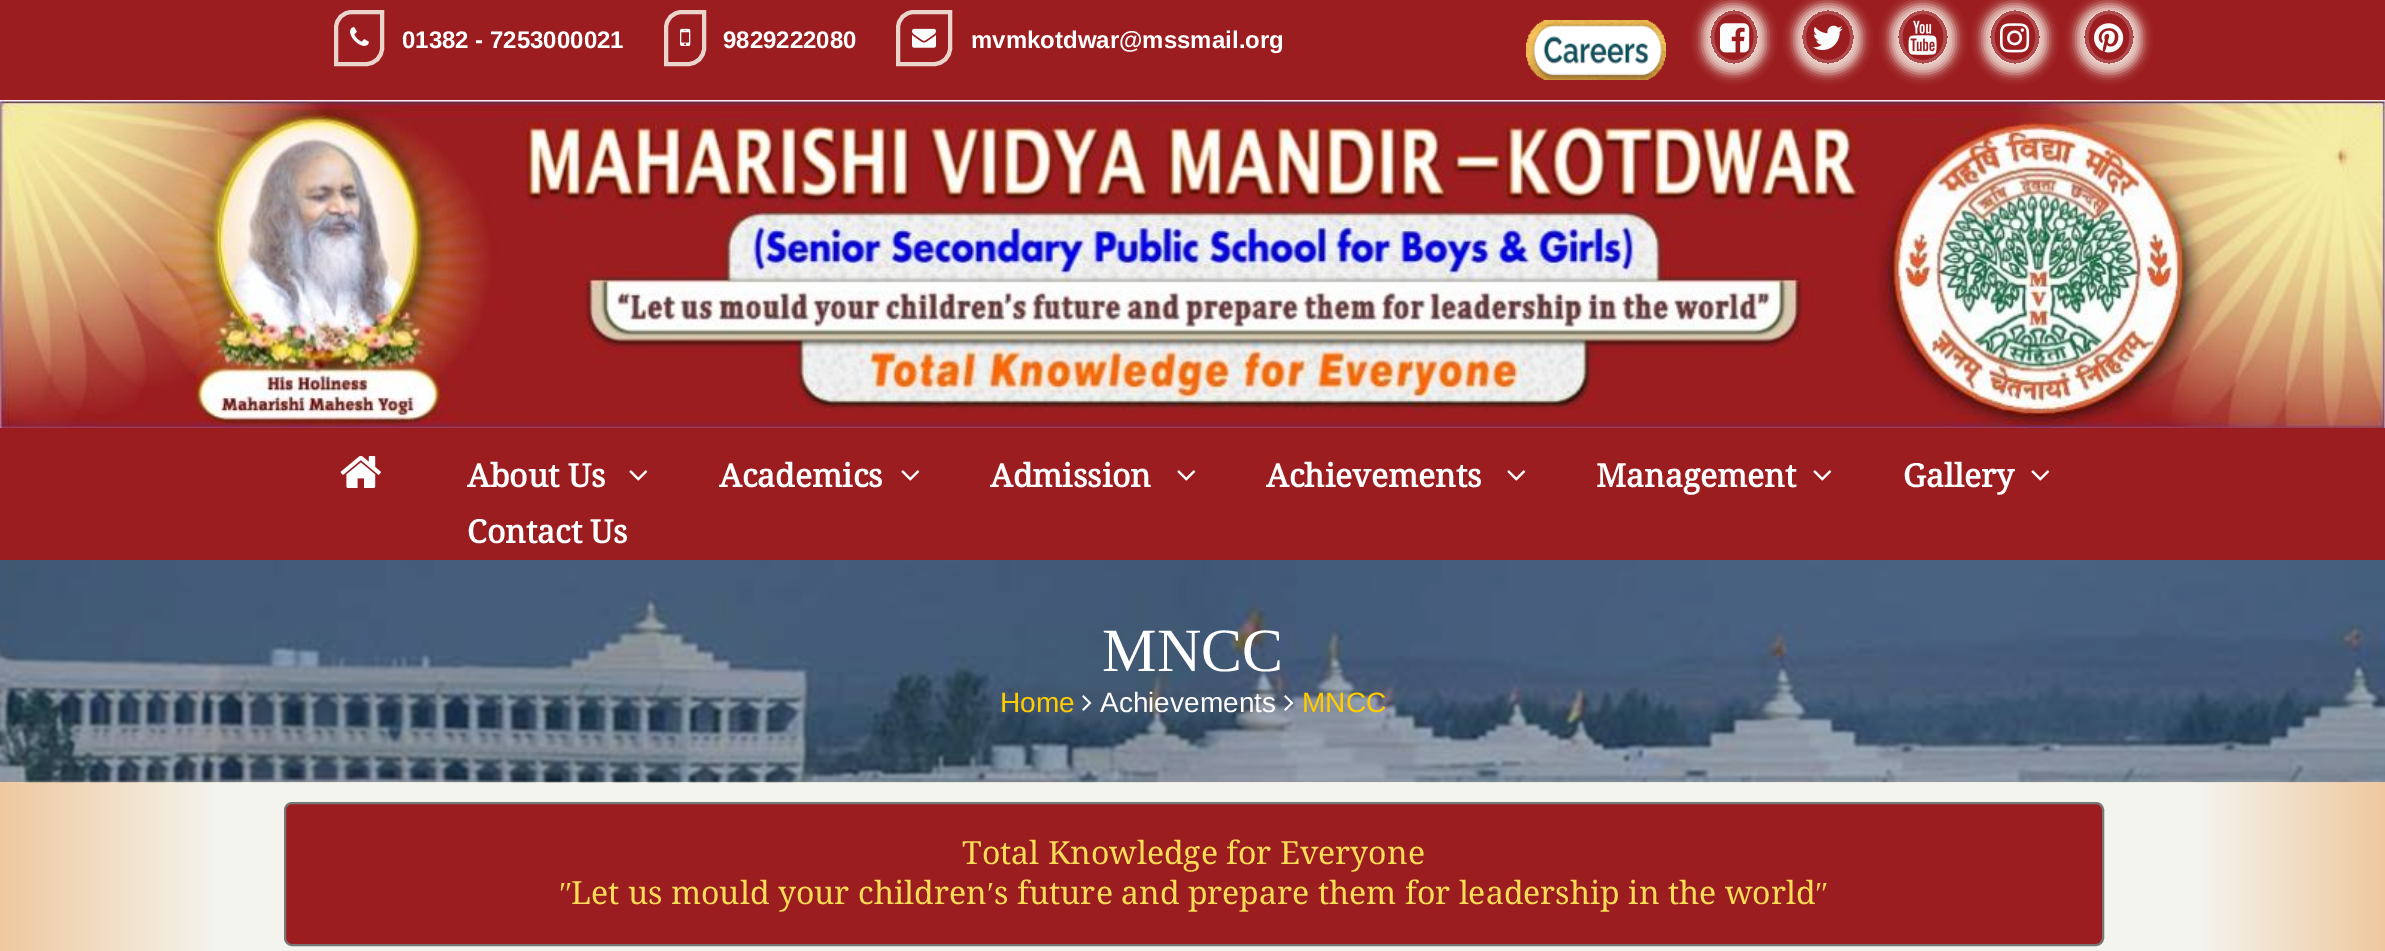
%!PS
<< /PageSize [2385 951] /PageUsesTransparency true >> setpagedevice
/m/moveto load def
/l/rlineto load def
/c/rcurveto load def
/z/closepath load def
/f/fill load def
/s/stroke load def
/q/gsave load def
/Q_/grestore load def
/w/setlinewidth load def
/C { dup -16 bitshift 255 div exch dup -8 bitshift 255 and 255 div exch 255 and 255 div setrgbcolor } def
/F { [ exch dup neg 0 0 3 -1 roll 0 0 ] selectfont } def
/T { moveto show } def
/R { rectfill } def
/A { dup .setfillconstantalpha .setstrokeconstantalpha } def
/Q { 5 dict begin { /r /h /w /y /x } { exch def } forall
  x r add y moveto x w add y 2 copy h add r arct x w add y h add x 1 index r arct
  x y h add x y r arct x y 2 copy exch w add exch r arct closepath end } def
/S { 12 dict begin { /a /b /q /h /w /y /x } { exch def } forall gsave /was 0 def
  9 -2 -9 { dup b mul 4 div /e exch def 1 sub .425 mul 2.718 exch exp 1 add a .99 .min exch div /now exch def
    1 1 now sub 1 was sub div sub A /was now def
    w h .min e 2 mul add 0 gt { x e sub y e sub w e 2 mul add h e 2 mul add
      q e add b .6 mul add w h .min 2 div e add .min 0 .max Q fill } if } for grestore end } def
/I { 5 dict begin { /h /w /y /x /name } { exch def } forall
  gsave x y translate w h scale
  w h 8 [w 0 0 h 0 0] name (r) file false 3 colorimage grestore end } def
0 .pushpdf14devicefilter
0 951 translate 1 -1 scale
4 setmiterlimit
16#FFFFFF C
0 0 2385 951 R
16#9B1D20 C
0 0 2385 100 R
16#EBD4CB C
4 w
352 12 m 30 0 l 0 36 l 0 9 -7 16 -16 16 c -30 0 l 0 -36 l 0 -9 7 -16 16 -16 c z s
(1.rgb) 350 27 19 19 I
/LiberationSans-Bold 24 F
16#FFFFFF C
(01382 - 7253000021) 402 48 T
16#EBD4CB C
682 12 m 22 0 l 0 36 l 0 9 -7 16 -16 16 c -22 0 l 0 -36 l 0 -9 7 -16 16 -16 c z s
(2.rgb) 680 28 11 18 I
16#FFFFFF C
(9829222080) 723 48 T
16#EBD4CB C
914 12 m 36 0 l 0 36 l 0 9 -7 16 -16 16 c -36 0 l 0 -36 l 0 -9 7 -16 16 -16 c z s
(3.rgb) 912 28 24 20 I
16#FFFFFF C
(mvmkotdwar@mssmail.org) 971 48 T
(4.rgb) 1526 20 140 60 I
q
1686 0 m 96 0 l 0 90 l -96 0 l z 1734 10 m 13.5 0 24 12 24 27 c 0 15 -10.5 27 -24 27 c -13.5 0 -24 -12 -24 -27 c 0 -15 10.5 -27 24 -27 c z eoclip newpath
16#EBD4CB C
1702 4 64 70 32 5 1 S
Q_
0.2 A
1734 12 m 29 0 29 50 0 50 c -29 0 -29 -50 0 -50 c z s
1 A
(5.rgb) 1720 23 30 30 I
q
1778 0 m 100 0 l 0 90 l -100 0 l z 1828 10 m 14.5 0 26 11.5 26 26 c 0 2 l 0 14.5 -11.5 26 -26 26 c -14.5 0 -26 -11.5 -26 -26 c 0 -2 l 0 -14.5 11.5 -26 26 -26 c z eoclip newpath
16#EBD4CB C
1794 4 68 70 34 5 1 S
Q_
0.2 A
1804 12 48 50 24 Q s
1 A
(6.rgb) 1813 25 30 25 I
q
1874 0 m 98 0 l 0 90 l -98 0 l z 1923 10 m 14 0 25 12 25 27 c 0 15 -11 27 -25 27 c -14 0 -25 -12 -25 -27 c 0 -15 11 -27 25 -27 c z eoclip newpath
16#EBD4CB C
1890 4 66 70 33 5 1 S
Q_
0.2 A
1923 12 m 30 0 30 50 0 50 c -30 0 -30 -50 0 -50 c z s
1 A
(7.rgb) 1908 20 29 35 I
q
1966 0 m 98 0 l 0 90 l -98 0 l z 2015 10 m 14 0 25 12 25 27 c 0 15 -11 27 -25 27 c -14 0 -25 -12 -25 -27 c 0 -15 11 -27 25 -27 c z eoclip newpath
16#EBD4CB C
1982 4 66 70 33 5 1 S
Q_
0.2 A
2015 12 m 30 0 30 50 0 50 c -30 0 -30 -50 0 -50 c z s
1 A
(8.rgb) 2000 23 30 30 I
q
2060 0 m 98 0 l 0 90 l -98 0 l z 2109 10 m 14 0 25 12 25 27 c 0 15 -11 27 -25 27 c -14 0 -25 -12 -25 -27 c 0 -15 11 -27 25 -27 c z eoclip newpath
16#EBD4CB C
2076 4 66 70 33 5 1 S
Q_
0.2 A
2109 12 m 30 0 30 50 0 50 c -30 0 -30 -50 0 -50 c z s
1 A
(9.rgb) 2094 23 30 30 I
(10.rgb) 0 100 2385 328 I
16#9B1D20 C
0 428 2385 132 R
(11.rgb) 340 455 41 33 I
/DroidSerif-Bold 32 F
16#FFFFFF C
(About Us) 467 487 T
(12.rgb) 629 470 19 11 I
(Academics) 719 487 T
(12.rgb) 901 470 19 11 I
(Admission) 990 487 T
(12.rgb) 1177 470 19 11 I
(Achievements) 1266 487 T
(12.rgb) 1507 470 19 11 I
(Management) 1596 487 T
(12.rgb) 1813 470 19 11 I
(Gallery) 1903 487 T
(12.rgb) 2031 470 19 11 I
(Contact Us) 467 543 T
q 0 782 m 2385 0 l 0 169 l -2385 0 l z clip newpath
<< /ShadingType 2 /ColorSpace /DeviceRGB /Coords [0 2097 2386 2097] /Extend [true true] /Function << /FunctionType 3 /Domain [0 1] /Functions [<< /FunctionType 2 /Domain [0 1] /C0 [.937 .784 .62] /C1 [.953 .957 .929] /N 1 >> << /FunctionType 2 /Domain [0 1] /C0 [.953 .957 .929] /C1 [.957 .957 .937] /N 1 >> << /FunctionType 2 /Domain [0 1] /C0 [.957 .957 .937] /C1 [.937 .784 .62] /N 1 >>] /Bounds [.09 .92] /Encode [0 1 0 1 0 1] >> >> shfill Q_
(13.rgb) 0 560 2385 223 I
/LiberationSerif-Regular 61.5 F
(MNCC) 1102 671 T
/LiberationSans-Regular 28 F
16#FFCC00 C
(Home) 1000 712 T
(14.rgb) 1082 695 10 16 I
16#FFFFFF C
(Achievements) 1100 712 T
(15.rgb) 1284 695 10 16 I
16#FFCC00 C
(MNCC) 1302 712 T
16#9B1D20 C
285 803 1818 142 7 Q q f Q_
16#757875 C
2 w
s
/DroidSerif-Regular 32 F
16#FBDC56 C
(Total Knowledge for Everyone) 962 864 T
/LiberationSerif-Regular 32 F
(ʺ) 559 904 T
/DroidSerif-Regular 32 F
(Let us mould your children) 571 904 T
/LiberationSerif-Regular 32 F
(′) 987 904 T
/DroidSerif-Regular 32 F
(s future and prepare them for leadership in the world) 994 904 T
/LiberationSerif-Regular 32 F
(ʺ) 1815 904 T
.poppdf14devicefilter showpage
